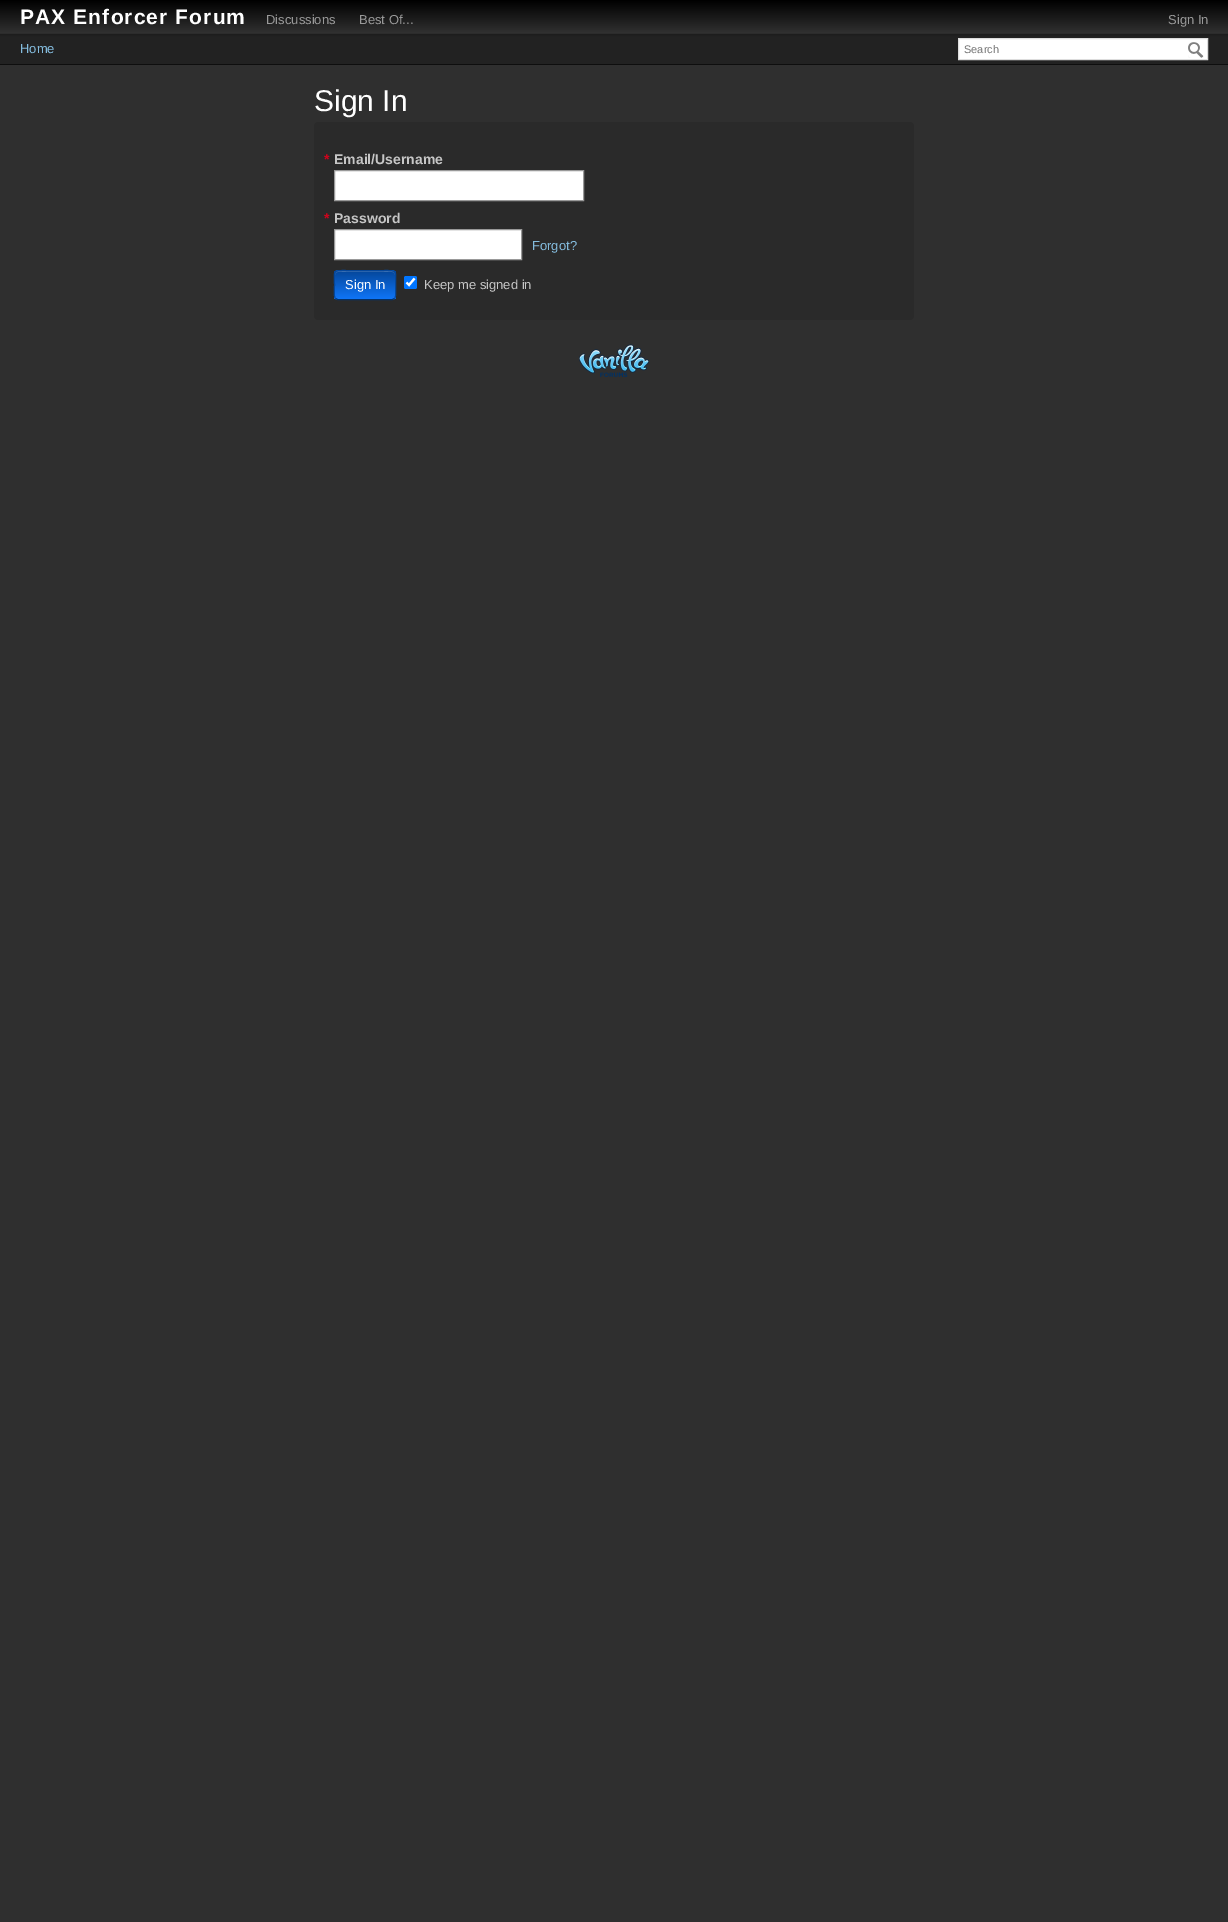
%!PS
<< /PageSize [1228 1922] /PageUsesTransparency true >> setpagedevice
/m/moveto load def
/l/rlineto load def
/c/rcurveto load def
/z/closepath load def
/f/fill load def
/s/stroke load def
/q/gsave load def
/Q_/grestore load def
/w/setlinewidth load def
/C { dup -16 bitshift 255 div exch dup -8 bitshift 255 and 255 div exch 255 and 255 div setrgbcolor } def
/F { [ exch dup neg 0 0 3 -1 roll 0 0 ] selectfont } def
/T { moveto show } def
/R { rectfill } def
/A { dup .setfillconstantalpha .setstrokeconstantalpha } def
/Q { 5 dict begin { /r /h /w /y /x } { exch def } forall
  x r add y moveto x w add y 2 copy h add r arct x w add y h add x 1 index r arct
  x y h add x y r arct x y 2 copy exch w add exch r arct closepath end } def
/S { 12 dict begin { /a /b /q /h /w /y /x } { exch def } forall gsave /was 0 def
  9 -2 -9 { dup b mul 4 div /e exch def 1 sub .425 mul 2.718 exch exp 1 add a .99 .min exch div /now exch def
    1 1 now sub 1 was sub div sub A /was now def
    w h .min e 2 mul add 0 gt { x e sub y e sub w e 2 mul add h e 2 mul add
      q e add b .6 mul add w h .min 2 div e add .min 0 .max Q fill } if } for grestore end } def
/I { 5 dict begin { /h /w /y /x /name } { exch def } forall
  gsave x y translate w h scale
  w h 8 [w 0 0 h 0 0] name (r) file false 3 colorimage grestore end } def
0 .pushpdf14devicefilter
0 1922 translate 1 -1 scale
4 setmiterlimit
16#2F2F2F C
0 0 1228 1922 R
16#222222 C
0 34 1228 30 R
16#FFFFFF C
958.5 38.5 m 249 0 l 0 21 l -249 0 l z q f Q_
16#DDDDDD C
s
16#000000 C
0 1 1228 34 0 1.5 .25 S
q 0 0 m 1228 0 l 0 33 l -1228 0 l z clip newpath
<< /ShadingType 2 /ColorSpace /DeviceRGB /Coords [614 34 614 0] /Extend [true true] /Function << /FunctionType 2 /Domain [0 1] /C0 [.196 .196 .196] /C1 [0 0 0] /N 1 >> >> shfill Q_
16#2C2C2C C
0 33 1228 1 R
/LiberationSans-Bold 21 F
16#FFFFFF C
20 24 m 1.1 0 (PAX Enforcer Forum) ashow
/LiberationSans-Regular 13 F
16#999999 C
(Discussions) 266 24 T
(Best Of...) 359 24 T
(Sign In) 1168 24 T
16#0E0E0E C
0 64 1228 1 R
16#84BCDE C
(Home) 20 53 T
/LiberationSans-Regular 11 F
16#757575 C
(Search) 964 53 T
(1.rgb) 1188 42 16 16 I
0.2 A
16#FFFFFF C
1192 43 m 10 0 l 1 1 2 2 2 3 c 0 -4.5 -4.5 -4 -8 -4 c -2.5 0 -5.5 -.5 -7.5 2 c -1 1.5 -.5 4 -.5 6 c 0 -3 0 -7 4 -7 c z 1204 52 m 0 3 l z eofill
/LiberationSans-Regular 30 F
1 A
(Sign In) 314 111 T
16#2A2A2A C
314 122 600 198 4 Q f
/LiberationSans-Bold 14 F
16#D0021B C
(*) 324 164 T
16#C6C6C6 C
(Email/Username) 334 164 T
16#FFFFFF C
334.5 170.5 m 249 0 l 0 30 l -249 0 l z q f Q_
16#999999 C
s
16#D0021B C
(*) 324 223 T
16#C6C6C6 C
(Password) 334 223 T
16#FFFFFF C
334.5 229.5 m 187 0 l 0 30 l -187 0 l z q f Q_
16#999999 C
s
/LiberationSans-Regular 13 F
16#84BCDE C
(Forgot?) 532 250 T
16#075ECC C
334 270 62 30 4 Q f
q
334 270 62 30 4 Q clip newpath
q 334 271 m 62 0 l 0 28 l -62 0 l z clip newpath
<< /ShadingType 2 /ColorSpace /DeviceRGB /Coords [365 299 365 271] /Extend [true true] /Function << /FunctionType 2 /Domain [0 1] /C0 [.059 .459 .969] /C1 [.02 .278 .608] /N 1 >> >> shfill Q_
Q_
16#376DB1 C
338 272 m 54 0 l 2 0 3 1 3 3 c 0 -6 -8 -4 -12 -4 c -36 0 l -4 0 -12 -2 -12 4 c 0 -2 1 -3 3 -3 c z f
16#043169 C
394.5 298.5 m -2 1 l -55 0 l -2 -1 l s
16#05479B C
335.5 298.5 m -2 -2 -1 -10.5 -1 -13.5 c 0 -15.5 -2.5 -14.5 12.5 -14.5 c 36 0 l 15 0 12.5 -1 12.5 14.5 c 0 3 1 11.5 -1 13.5 c s
16#FFFFFF C
(Sign In) 345 289 T
16#0075FF C
404 276 13 13 2 Q f
16#FFFFFF C
2.1 w
406.5 282.5 m 2.5 2.5 l 5.5 -6.5 l s
16#C6C6C6 C
(Keep me signed in) 424 289 T
(2.rgb) 579 344 70 33 I
.poppdf14devicefilter showpage
